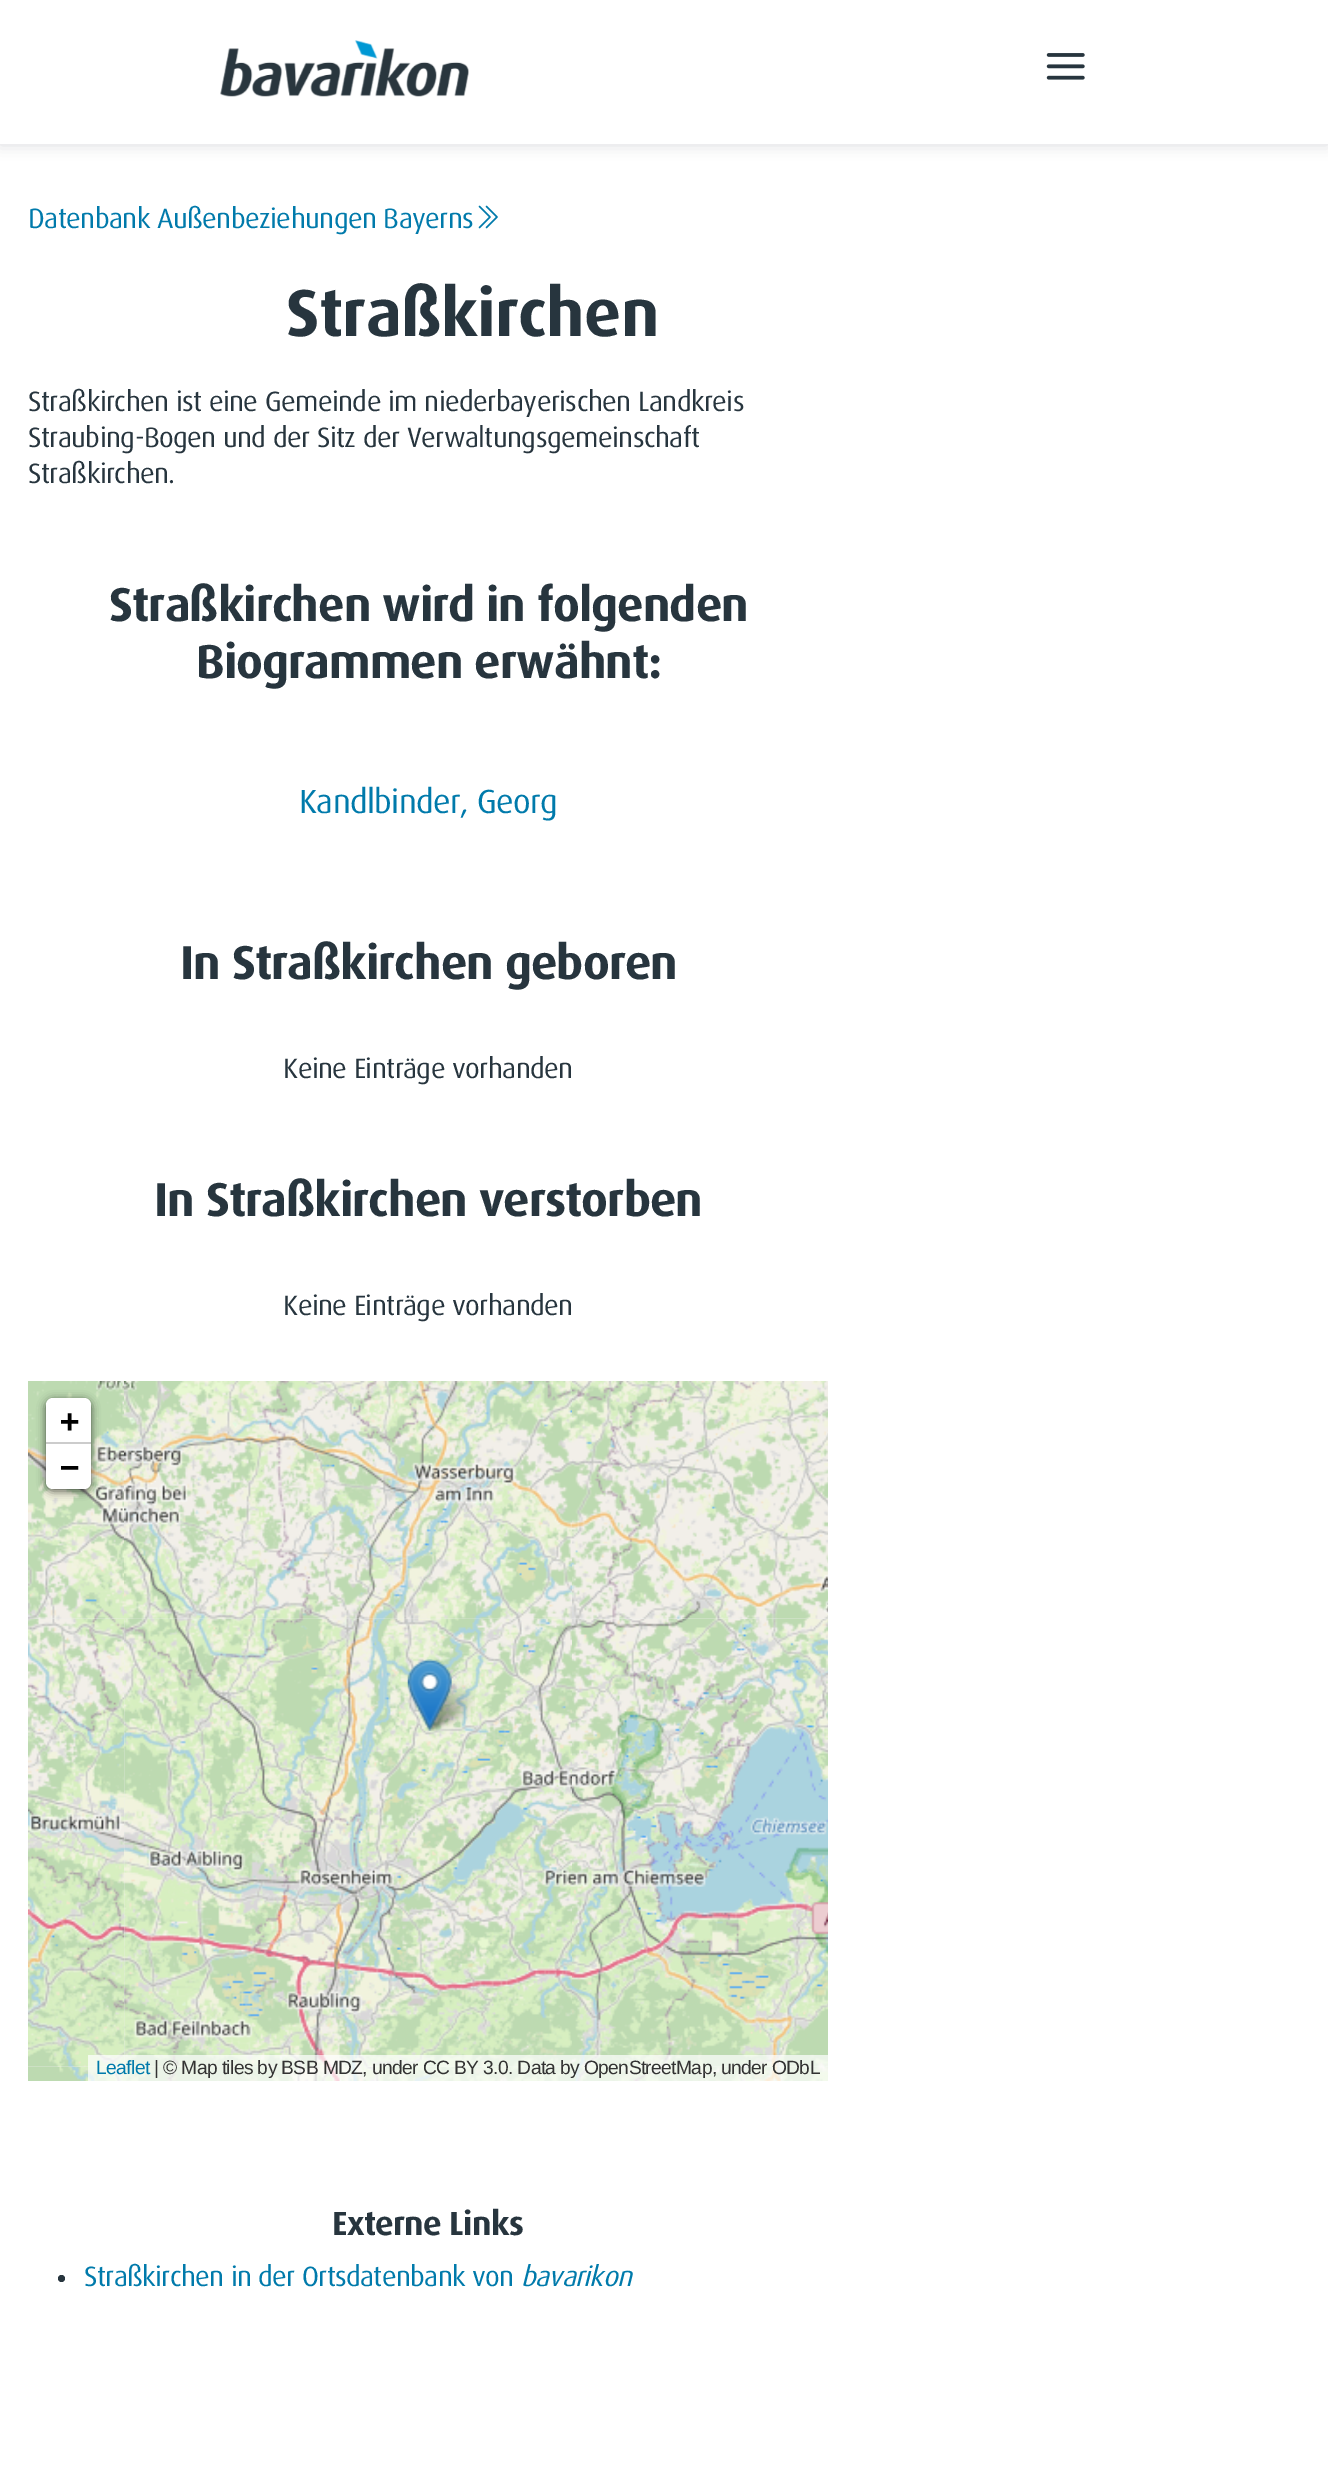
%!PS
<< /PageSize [1328 2474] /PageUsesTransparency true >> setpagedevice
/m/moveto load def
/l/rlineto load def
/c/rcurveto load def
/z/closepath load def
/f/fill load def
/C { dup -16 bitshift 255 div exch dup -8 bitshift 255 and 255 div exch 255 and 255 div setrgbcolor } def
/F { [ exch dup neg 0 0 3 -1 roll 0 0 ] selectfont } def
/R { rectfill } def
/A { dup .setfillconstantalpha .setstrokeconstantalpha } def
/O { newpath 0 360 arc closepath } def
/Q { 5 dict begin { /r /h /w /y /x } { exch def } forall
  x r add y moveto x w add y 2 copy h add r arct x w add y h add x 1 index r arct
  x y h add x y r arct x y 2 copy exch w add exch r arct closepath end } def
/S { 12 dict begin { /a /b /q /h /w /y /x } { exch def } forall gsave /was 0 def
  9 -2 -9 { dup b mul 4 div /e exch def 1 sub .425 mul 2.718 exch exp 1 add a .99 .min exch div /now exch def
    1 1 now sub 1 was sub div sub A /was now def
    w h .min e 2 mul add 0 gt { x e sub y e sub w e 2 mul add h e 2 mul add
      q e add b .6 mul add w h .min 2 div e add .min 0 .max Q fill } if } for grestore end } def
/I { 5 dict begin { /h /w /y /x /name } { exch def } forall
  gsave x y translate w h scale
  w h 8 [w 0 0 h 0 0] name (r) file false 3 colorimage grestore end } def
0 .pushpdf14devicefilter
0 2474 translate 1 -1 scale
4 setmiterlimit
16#FFFFFF C
0 0 1328 2474 R
16#27353E C
0 2 1328 143 0 7 .17 S
16#FFFFFF C
0 0 1328 144 R
(1.rgb) 220 40 249 57 I
(2.rgb) 1046 53 39 27 I
/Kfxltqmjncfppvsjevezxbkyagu-Regular 28 F
16#007AAB C
28 228 m -.55 0 (Datenbank Außenbeziehungen Bayerns) ashow
(3.rgb) 478 205 20 24 I
/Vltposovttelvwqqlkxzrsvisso-Bold 66.5 F
16#27353E C
286 336 m -.7 0 (Straßkirchen) ashow
/Kfxltqmjncfppvsjevezxbkyagu-Regular 28 F
28 411 m -.55 0 (Straßkirchen ist eine Gemeinde im niederbayerischen Landkreis) ashow
28 447 m -.55 0 (Straubing-Bogen und der Sitz der Verwaltungsgemeinschaft) ashow
28 483 m -.55 0 (Straßkirchen.) ashow
/Vltposovttelvwqqlkxzrsvisso-Bold 47.6 F
109 621 m -.95 0 (Straßkirchen wird in folgenden) ashow
196 678 m -.95 0 (Biogrammen erwähnt:) ashow
/Kfxltqmjncfppvsjevezxbkyagu-Regular 33.5 F
16#007AAB C
299 813 m -.63 0 (Kandlbinder, Georg) ashow
/Vltposovttelvwqqlkxzrsvisso-Bold 47.6 F
16#27353E C
180 979 m -.95 0 (In Straßkirchen geboren) ashow
/Kfxltqmjncfppvsjevezxbkyagu-Regular 28 F
283 1078 m -.55 0 (Keine Einträge vorhanden) ashow
/Vltposovttelvwqqlkxzrsvisso-Bold 47.6 F
154 1216 m -.95 0 (In Straßkirchen verstorben) ashow
/Kfxltqmjncfppvsjevezxbkyagu-Regular 28 F
283 1315 m -.55 0 (Keine Einträge vorhanden) ashow
16#EEEEEE C
28 1618 800 449 R
(7.rgb) 28 1619 96 448 I
(4.rgb) 28 1381 96 239 I
(8.rgb) 124 1618 449 449 I
(5.rgb) 124 1381 448 239 I
(9.rgb) 572 1619 256 448 I
(6.rgb) 572 1381 256 239 I
(10.rgb) 28 2067 96 14 I
(11.rgb) 124 2067 448 14 I
(12.rgb) 572 2067 256 14 I
(14.rgb) 423 1681 52 50 I
(13.rgb) 407 1659 45 72 I
16#000000 C
46 1400 45 91 7 4.5 .65 S
16#FFFFFF C
53 1398 m 31 0 l 4 0 7 3 7 7 c 0 39 l -45 0 l 0 -39 l 0 -4 3 -7 7 -7 c z f
16#CCCCCC C
46 1442 45 2 R
/DejaVuSansMono-Bold 32 F
16#000000 C
60 1432 m -.63 0 (+) ashow
16#FFFFFF C
46 1444 m 45 0 l 0 38 l 0 4 -3 7 -7 7 c -31 0 l -4 0 -7 -3 -7 -7 c z f
16#000000 C
60 1478 m -.63 0 (−) ashow
0.7 A
16#FFFFFF C
88 2055 740 26 R
/LiberationSans-Regular 19.25 F
1 A
16#007AAB C
96 2074 m -.63 0 (Leaflet) ashow
16#333333 C
154 2074 m -.63 0 (| © Map tiles by BSB MDZ, under CC BY 3.0. Data by OpenStreetMap, under ODbL) ashow
/Vltposovttelvwqqlkxzrsvisso-Bold 33.5 F
16#27353E C
332 2235 m -.7 0 (Externe Links) ashow
61.5 2278.5 3.5 O f
/Kfxltqmjncfppvsjevezxbkyagu-Regular 28 F
16#007AAB C
84 2286 m -.63 0 (Straßkirchen in der Ortsdatenbank von) ashow
/Kfxltqmjncfppvsjevezxbkyagu-Italic 28 F
521 2286 m -.63 0 (bavarikon) ashow
.poppdf14devicefilter showpage
